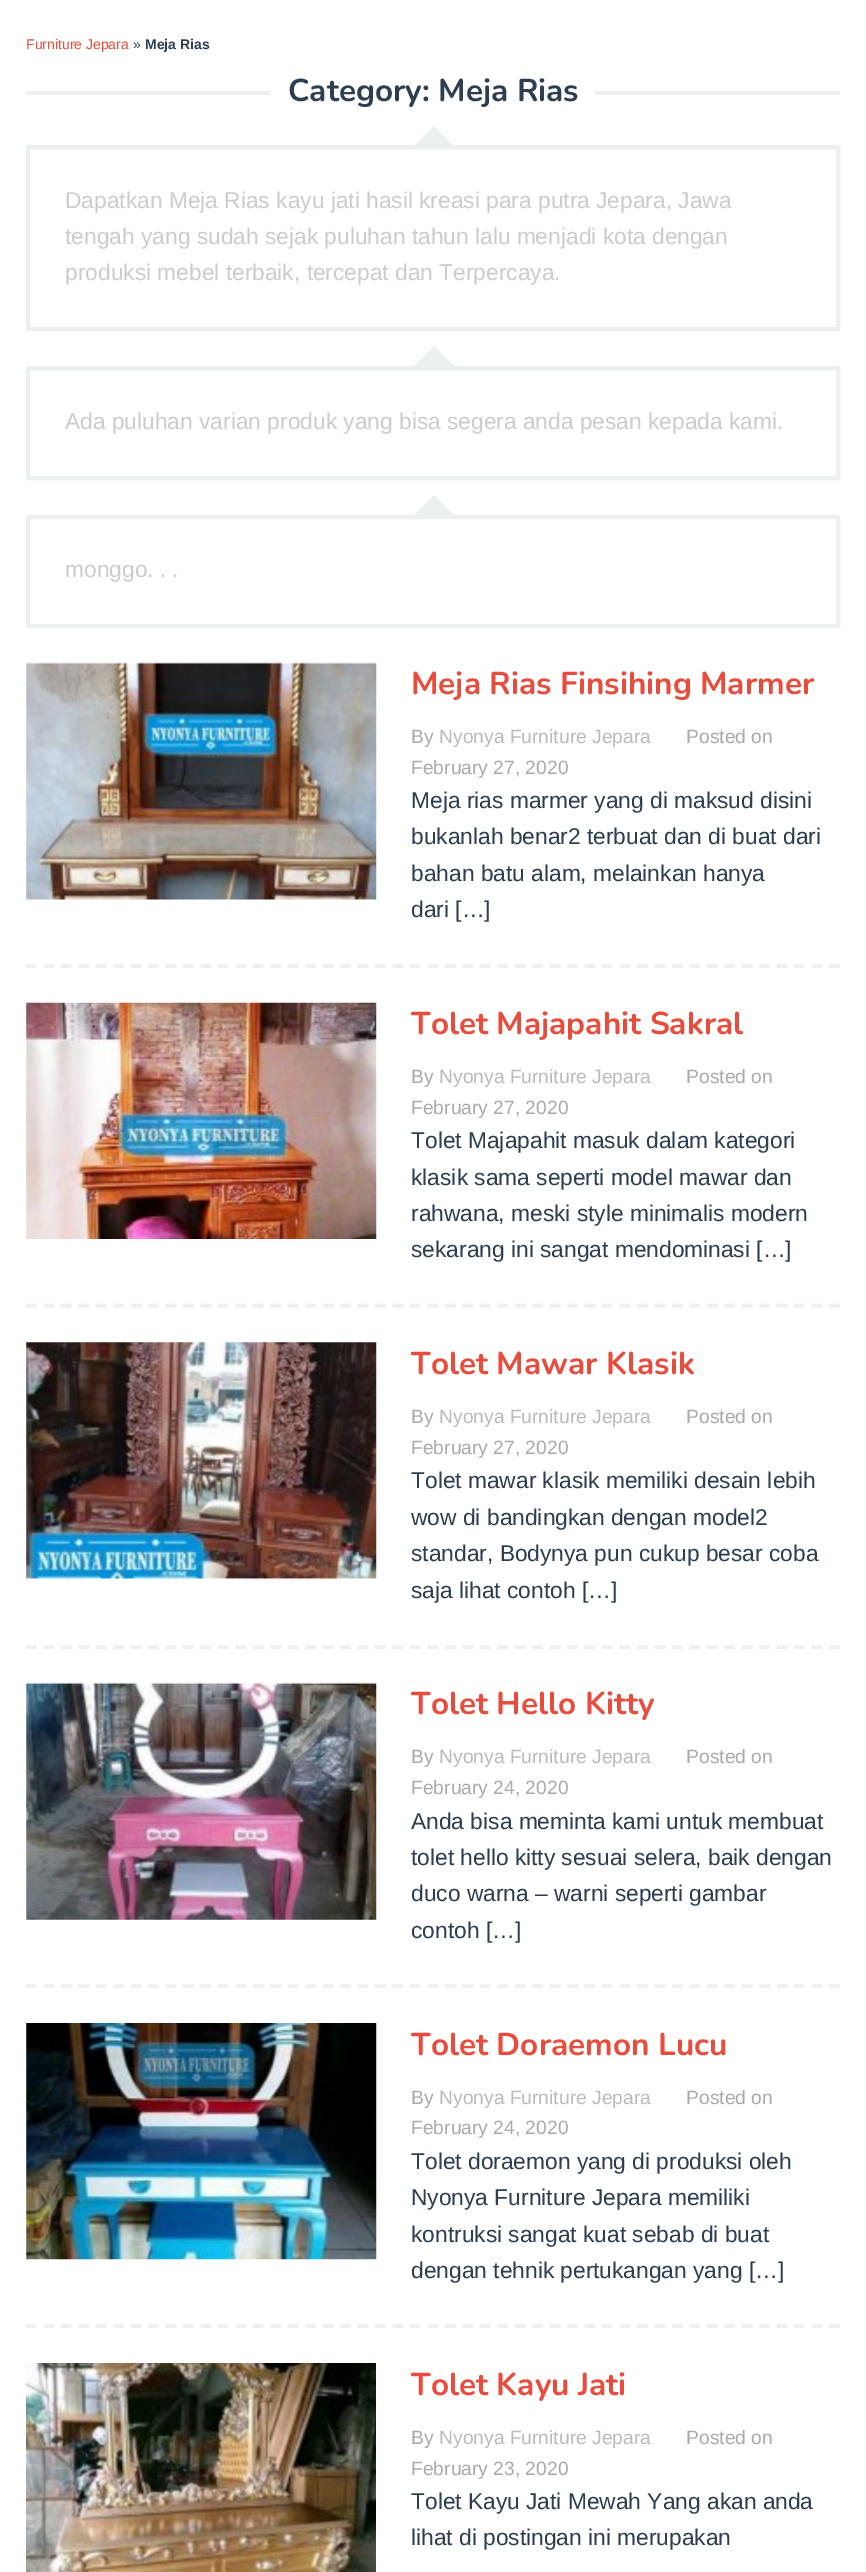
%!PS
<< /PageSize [866 2572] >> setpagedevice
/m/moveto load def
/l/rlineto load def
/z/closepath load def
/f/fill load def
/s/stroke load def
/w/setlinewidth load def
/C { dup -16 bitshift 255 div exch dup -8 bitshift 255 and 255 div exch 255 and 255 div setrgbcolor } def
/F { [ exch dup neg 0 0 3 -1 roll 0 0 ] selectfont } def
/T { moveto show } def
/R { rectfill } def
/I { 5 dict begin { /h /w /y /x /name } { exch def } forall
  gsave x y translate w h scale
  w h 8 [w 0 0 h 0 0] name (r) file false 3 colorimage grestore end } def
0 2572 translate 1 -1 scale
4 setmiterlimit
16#FFFFFF C
0 0 866 2572 R
/LiberationSans-Regular 14 F
16#E74C3C C
(Furniture Jepara) 26 49 T
16#2C3E50 C
(») 133 49 T
/LiberationSans-Bold 14 F
(Meja Rias) 145 49 T
16#ECF0F1 C
26 91 245 4 R
/Nunito-Bold 31.5 F
16#2C3E50 C
(Category: Meja Rias) 288 101 T
16#ECF0F1 C
595 91 245 4 R
4 w
28 147 810 182 rectstroke
457 149 m -46 0 l 23 -23 l z f
/LiberationSans-Regular 22.75 F
16#CCCCCC C
(Dapatkan Meja Rias kayu jati hasil kreasi para putra Jepara, Jawa) 65 208 T
(tengah yang sudah sejak puluhan tahun lalu menjadi kota dengan) 65 244 T
(produksi mebel terbaik, tercepat dan Terpercaya.) 65 280 T
16#ECF0F1 C
28 368 810 110 rectstroke
457 369 m -46 0 l 23 -23 l z f
16#CCCCCC C
(Ada puluhan varian produk yang bisa segera anda pesan kepada kami.) 65 429 T
16#ECF0F1 C
28 517 810 109 rectstroke
457 518 m -46 0 l 23 -23 l z f
16#CCCCCC C
(monggo. . .) 65 577 T
16#ECF0F1 C
3.5 w
[10.5 6.96] 0 setdash
26 966 m 814 0 l s
(1.rgb) 26 662 351 238 I
/Nunito-Bold 31.5 F
16#E74C3C C
(Meja Rias Finsihing Marmer) 411 694 T
/LiberationSans-Regular 19.25 F
16#AAAAAA C
(By) 411 743 T
16#BBBBBB C
(Nyonya Furniture Jepara) 439 743 T
16#AAAAAA C
(Posted on) 686 743 T
(February 27, 2020) 411 774 T
/LiberationSans-Regular 22.75 F
16#2C3E50 C
(Meja rias marmer yang di maksud disini) 411 808 T
(bukanlah benar2 terbuat dan di buat dari) 411 844 T
(bahan batu alam, melainkan hanya) 411 881 T
(dari […]) 411 917 T
16#ECF0F1 C
26 1305.5 m 814 0 l s
(2.rgb) 26 1002 351 237 I
/Nunito-Bold 31.5 F
16#E74C3C C
(Tolet Majapahit Sakral) 411 1034 T
/LiberationSans-Regular 19.25 F
16#AAAAAA C
(By) 411 1083 T
16#BBBBBB C
(Nyonya Furniture Jepara) 439 1083 T
16#AAAAAA C
(Posted on) 686 1083 T
(February 27, 2020) 411 1114 T
/LiberationSans-Regular 22.75 F
16#2C3E50 C
(Tolet Majapahit masuk dalam kategori) 411 1148 T
(klasik sama seperti model mawar dan) 411 1185 T
(rahwana, meski style minimalis modern) 411 1221 T
(sekarang ini sangat mendominasi […]) 411 1257 T
16#ECF0F1 C
26 1647 m 814 0 l s
(3.rgb) 26 1342 351 238 I
/Nunito-Bold 31.5 F
16#E74C3C C
(Tolet Mawar Klasik) 411 1374 T
/LiberationSans-Regular 19.25 F
16#AAAAAA C
(By) 411 1423 T
16#BBBBBB C
(Nyonya Furniture Jepara) 439 1423 T
16#AAAAAA C
(Posted on) 686 1423 T
(February 27, 2020) 411 1454 T
/LiberationSans-Regular 22.75 F
16#2C3E50 C
(Tolet mawar klasik memiliki desain lebih) 411 1488 T
(wow di bandingkan dengan model2) 411 1525 T
(standar, Bodynya pun cukup besar coba) 411 1561 T
(saja lihat contoh […]) 411 1598 T
16#ECF0F1 C
26 1986 m 814 0 l s
(4.rgb) 26 1682 351 238 I
/Nunito-Bold 31.5 F
16#E74C3C C
(Tolet Hello Kitty) 411 1714 T
/LiberationSans-Regular 19.25 F
16#AAAAAA C
(By) 411 1763 T
16#BBBBBB C
(Nyonya Furniture Jepara) 439 1763 T
16#AAAAAA C
(Posted on) 686 1763 T
(February 24, 2020) 411 1794 T
/LiberationSans-Regular 22.75 F
16#2C3E50 C
(Anda bisa meminta kami untuk membuat) 411 1829 T
(tolet hello kitty sesuai selera, baik dengan) 411 1865 T
(duco warna – warni seperti gambar) 411 1901 T
(contoh […]) 411 1938 T
16#ECF0F1 C
26 2326 m 814 0 l s
(5.rgb) 26 2023 351 237 I
/Nunito-Bold 31.5 F
16#E74C3C C
(Tolet Doraemon Lucu) 411 2055 T
/LiberationSans-Regular 19.25 F
16#AAAAAA C
(By) 411 2104 T
16#BBBBBB C
(Nyonya Furniture Jepara) 439 2104 T
16#AAAAAA C
(Posted on) 686 2104 T
(February 24, 2020) 411 2134 T
/LiberationSans-Regular 22.75 F
16#2C3E50 C
(Tolet doraemon yang di produksi oleh) 411 2169 T
(Nyonya Furniture Jepara memiliki) 411 2205 T
(kontruksi sangat kuat sebab di buat) 411 2242 T
(dengan tehnik pertukangan yang […]) 411 2278 T
(6.rgb) 26 2363 350 209 I
/Nunito-Bold 31.5 F
16#E74C3C C
(Tolet Kayu Jati) 411 2395 T
/LiberationSans-Regular 19.25 F
16#AAAAAA C
(By) 411 2444 T
16#BBBBBB C
(Nyonya Furniture Jepara) 439 2444 T
16#AAAAAA C
(Posted on) 686 2444 T
(February 23, 2020) 411 2475 T
/LiberationSans-Regular 22.75 F
16#2C3E50 C
(Tolet Kayu Jati Mewah Yang akan anda) 411 2509 T
(lihat di postingan ini merupakan) 411 2545 T
showpage
